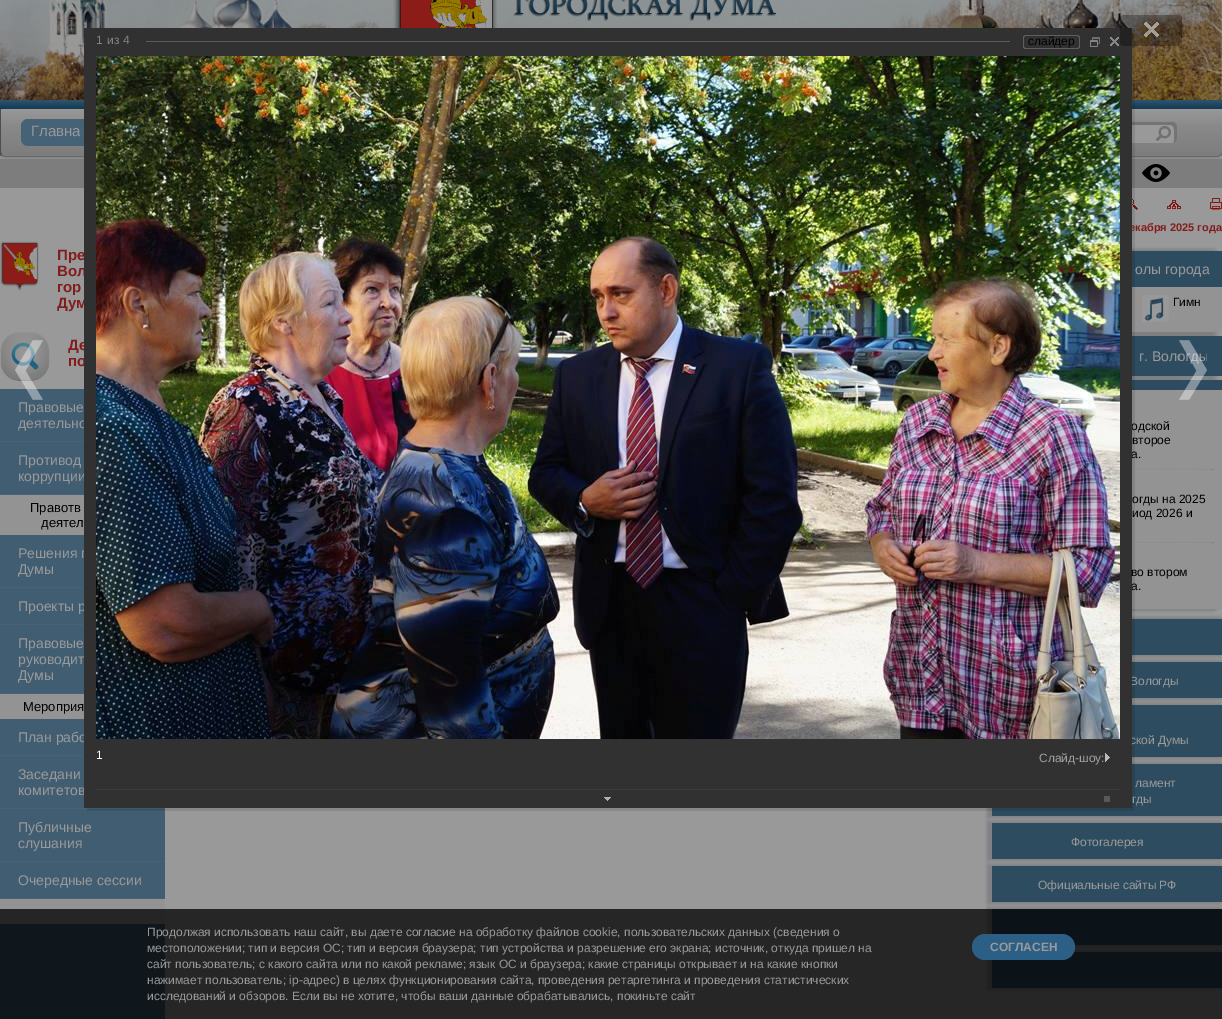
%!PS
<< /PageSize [1222 1019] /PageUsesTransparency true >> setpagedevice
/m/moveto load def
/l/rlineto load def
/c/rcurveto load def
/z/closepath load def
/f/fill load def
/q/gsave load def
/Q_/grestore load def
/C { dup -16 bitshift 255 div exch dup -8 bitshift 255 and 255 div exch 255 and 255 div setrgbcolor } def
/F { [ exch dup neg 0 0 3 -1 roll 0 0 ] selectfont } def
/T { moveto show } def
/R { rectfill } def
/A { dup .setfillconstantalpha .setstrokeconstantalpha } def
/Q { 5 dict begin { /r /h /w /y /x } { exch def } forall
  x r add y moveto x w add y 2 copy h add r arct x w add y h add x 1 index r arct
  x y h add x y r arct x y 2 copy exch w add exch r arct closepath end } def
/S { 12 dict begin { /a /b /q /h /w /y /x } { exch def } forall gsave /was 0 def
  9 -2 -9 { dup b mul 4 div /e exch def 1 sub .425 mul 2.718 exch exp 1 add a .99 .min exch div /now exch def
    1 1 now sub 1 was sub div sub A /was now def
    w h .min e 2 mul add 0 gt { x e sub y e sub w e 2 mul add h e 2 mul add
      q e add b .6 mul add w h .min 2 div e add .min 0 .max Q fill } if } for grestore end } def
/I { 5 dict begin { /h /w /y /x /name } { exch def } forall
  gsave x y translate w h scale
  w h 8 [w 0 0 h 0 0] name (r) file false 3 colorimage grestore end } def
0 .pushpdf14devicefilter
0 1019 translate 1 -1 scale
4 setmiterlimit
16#999999 C
0 0 1222 1019 R
(21.rgb) 0 332 50 49 I
16#415D71 C
0 389 84 52 R
(1.rgb) 15 340 28 60 I
(11.rgb) 0 0 1222 100 I
(14.rgb) 0 100 1222 9 I
16#4E4E4E C
-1 109 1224 50 6 1.5 .27 S
q
0 109 m 1222 0 l 0 43 l 0 3 -2 5 -5 5 c -1212 0 l -3 0 -5 -2 -5 -5 c z clip newpath
q 0 109 m 1222 0 l 0 47 l -1222 0 l z clip newpath
<< /ShadingType 2 /ColorSpace /DeviceRGB /Coords [612 109 612 156] /Extend [true true] /Function << /FunctionType 3 /Domain [0 1] /Functions [<< /FunctionType 2 /Domain [0 1] /C0 [.6 .6 .6] /C1 [.533 .533 .533] /N 1 >> << /FunctionType 2 /Domain [0 1] /C0 [.533 .533 .533] /C1 [.49 .49 .49] /N 1 >>] /Bounds [.4] /Encode [0 1 0 1] >> >> shfill Q_
q 0 156 m 1222 0 l 0 1 l -1222 0 l z clip newpath
<< /ShadingType 2 /ColorSpace /DeviceRGB /Coords [612 156 612 203] /Extend [true true] /Function << /FunctionType 3 /Domain [0 1] /Functions [<< /FunctionType 2 /Domain [0 1] /C0 [.6 .6 .6] /C1 [.533 .533 .533] /N 1 >> << /FunctionType 2 /Domain [0 1] /C0 [.533 .533 .533] /C1 [.49 .49 .49] /N 1 >>] /Bounds [.4] /Encode [0 1 0 1] >> >> shfill Q_
Q_
0.65 A
5 157 m 1212 0 l 3 0 5 -2 5 -5 c 0 2 -2 4 -5 4 c -1212 0 l -1 0 -2 0 -3 -1 c -1 1 l 1 0 3 1 4 1 c z f
1 A
16#466277 C
21 119 78 27 7 Q f
16#999999 C
982 122 195 21 5 Q f
0.9 A
16#707070 C
985 125 m 185 0 l 5 0 4 6 4 9 c 0 3 1 7 -1 9 c 2 0 4 -2 4 -5 c 0 -11 l 0 -3 -2 -5 -5 -5 c -185 0 l -3 0 -5 2 -5 4 c 1 0 2 -1 3 -1 c z f
1 A
16#7D7D7D C
0 159 1222 29 R
(17.rgb) 1132 198 6 12 I
16#476276 C
0 808 165 1 R
16#415D71 C
0 809 165 52 R
16#142430 C
987 249 234 85 9 1.5 .2 S
16#939393 C
992 251 230 81 7 Q f
16#2E4C5F C
1132 251 90 36 R
16#142430 C
987 334 234 44 9 1.5 .2 S
16#2E4C5F C
1132 336 90 40 R
16#142430 C
987 378 234 233 9 1.5 .2 S
16#939393 C
1132 390 90 219 R
16#2E4C5F C
1132 380 90 10 R
(23.rgb) 1132 469 82 2 I
(23.rgb) 1132 542 82 2 I
16#142430 C
987 617 234 40 0 1.5 .2 S
16#2E4C5F C
1132 619 90 36 R
16#142430 C
987 660 234 40 0 1.5 .2 S
16#2E4C5F C
1132 662 90 36 R
16#142430 C
987 703 234 56 0 1.5 .2 S
16#2E4C5F C
1132 705 90 52 R
16#142430 C
987 762 234 56 0 1.5 .2 S
16#2E4C5F C
992 764 230 52 R
0.1 A
16#000000 C
87 28 1048 783 R
/LiberationSans-Bold 11 F
1 A
16#811D1D C
(екабря 2025 года) 1129 231 T
/LiberationSans-Bold 15 F
(Пре) 57 260 T
(Вол) 57 276 T
(Дум) 57 308 T
(Де) 68 350 T
(по) 68 366 T
/LiberationSans-Regular 14 F
16#999999 C
(деятельно) 18 428 T
16#415D71 C
0 442 84 52 R
16#999999 C
(коррупции) 18 481 T
16#415D71 C
0 535 84 52 R
16#999999 C
(Решения г) 18 558 T
16#415D71 C
0 588 84 36 R
16#999999 C
(Проекты р) 18 611 T
16#415D71 C
0 625 84 68 R
16#999999 C
(руководит) 18 664 T
16#415D71 C
0 719 84 36 R
16#999999 C
(План рабо) 18 742 T
16#415D71 C
0 756 84 52 R
16#999999 C
(комитетов) 18 795 T
/LiberationSans-Regular 12 F
16#000000 C
(одской) 1131 430 T
(а.) 1131 458 T
(а.) 1131 590 T
16#999999 C
(Вологды) 1130 685 T
(ской Думы) 1130 744 T
16#313131 C
84 28 1048 780 R
16#838383 C
(1) 96 44 T
(из) 107 44 T
(4) 123 44 T
16#5A5A5A C
146 41 864 1 R
(2.rgb) 1023 35 54 14 I
16#000000 C
(слайдер) 1028 45 T
(3.rgb) 1077 35 3 14 I
(4.rgb) 1090 37 10 10 I
(5.rgb) 1110 37 9 9 I
(6.rgb) 96 56 1024 683 I
16#3D3D3D C
96 789 1024 1 R
16#FFFFFF C
(1) 96 759 T
16#A2A2A2 C
(Слайд-шоу:) 1039 762 T
(7.rgb) 1105 753 5 9 I
(8.rgb) 604 797 7 4 I
16#585858 C
1104 796 6 6 R
(9.rgb) 1120 15 62 31 I
/LiberationSans-Regular 14 F
16#999999 C
(г. Вологды) 1139 361 T
(10.rgb) 1179 340 28 60 I
(12.rgb) 393 0 104 28 I
(13.rgb) 513 0 263 21 I
16#4E4E4E C
0 109 m 1 0 l 0 43 l 0 1 1 2 1 3 c -1 1 l -1 -1 -1 -2 -1 -4 c z f
/LiberationSans-Regular 15 F
16#999999 C
(Главна) 31 136 T
(15.rgb) 1156 126 15 15 I
(16.rgb) 1142 164 28 18 I
(18.rgb) 1167 200 14 9 I
(19.rgb) 1210 198 12 12 I
(20.rgb) 0 241 39 50 I
/LiberationSans-Bold 15 F
16#811D1D C
(гор) 57 292 T
16#476276 C
0 441 84 1 R
/LiberationSans-Regular 14 F
16#999999 C
(Правовые) 18 412 T
16#476276 C
0 494 84 1 R
16#999999 C
(Противод) 18 465 T
16#939393 C
0 495 84 40 R
/LiberationSans-Regular 13 F
16#000000 C
(Правотв) 30 512 T
(деятел) 41 527 T
16#476276 C
0 587 84 1 R
/LiberationSans-Regular 14 F
16#999999 C
(Думы) 18 574 T
16#476276 C
0 624 84 1 R
0 693 84 1 R
16#999999 C
(Правовые) 18 648 T
(Думы) 18 680 T
16#939393 C
0 694 84 25 R
/LiberationSans-Regular 13 F
16#000000 C
(Мероприя) 23 711 T
16#476276 C
0 755 84 1 R
/LiberationSans-Regular 14 F
16#999999 C
(Заседани) 18 779 T
16#476276 C
0 861 165 1 R
16#999999 C
(Публичные) 18 832 T
(слушания) 18 848 T
16#415D71 C
0 862 165 36 R
16#476276 C
0 898 165 1 R
16#999999 C
(Очередные сессии) 18 885 T
16#939393 C
0 899 165 25 R
16#415D71 C
0 924 165 36 R
16#476276 C
0 960 165 1 R
16#415D71 C
0 961 165 36 R
16#476276 C
0 997 165 1 R
16#415D71 C
0 998 165 21 R
16#999999 C
(олы города) 1135 274 T
(22.rgb) 1142 295 27 27 I
/LiberationSans-Regular 12 F
16#000000 C
(Гимн) 1173 306 T
(второе) 1132 444 T
(огды на 2025) 1132 503 T
(иод 2026 и) 1132 517 T
(во втором) 1131 576 T
16#999999 C
(ламент) 1135 787 T
(гды) 1132 803 T
16#142430 C
987 821 234 40 0 1.5 .2 S
16#2E4C5F C
992 823 230 36 R
16#999999 C
(Фотогалерея) 1071 846 T
16#142430 C
987 864 234 40 0 1.5 .2 S
16#2E4C5F C
992 866 230 36 R
16#999999 C
(Официальные сайты РФ) 1038 889 T
16#142430 C
987 907 234 40 0 1.5 .2 S
16#2E4C5F C
992 909 230 36 R
16#142430 C
987 950 234 40 0 1.5 .2 S
16#2E4C5F C
992 952 230 36 R
0.75 A
16#000000 C
0 909 1222 110 R
1 A
16#999999 C
(Продолжая использовать наш сайт, вы даете согласие на обработку файлов cookie, пользовательских данных \(сведения о) 147 936 T
(местоположении; тип и версия ОС; тип и версия браузера; тип устройства и разрешение его экрана; источник, откуда пришел на) 147 952 T
(сайт пользователь; с какого сайта или по какой рекламе; язык ОС и браузера; какие страницы открывает и на какие кнопки) 147 968 T
(нажимает пользователь; ip-адрес\) в целях функционирования сайта, проведения ретаргетинга и проведения статистических) 147 984 T
(исследований и обзоров. Если вы не хотите, чтобы ваши данные обрабатывались, покиньте сайт) 147 1000 T
16#2C5F86 C
972 934 103 26 13 Q f
/LiberationSans-Bold 12 F
16#999999 C
(СОГЛАСЕН) 990 951 T
.poppdf14devicefilter showpage
